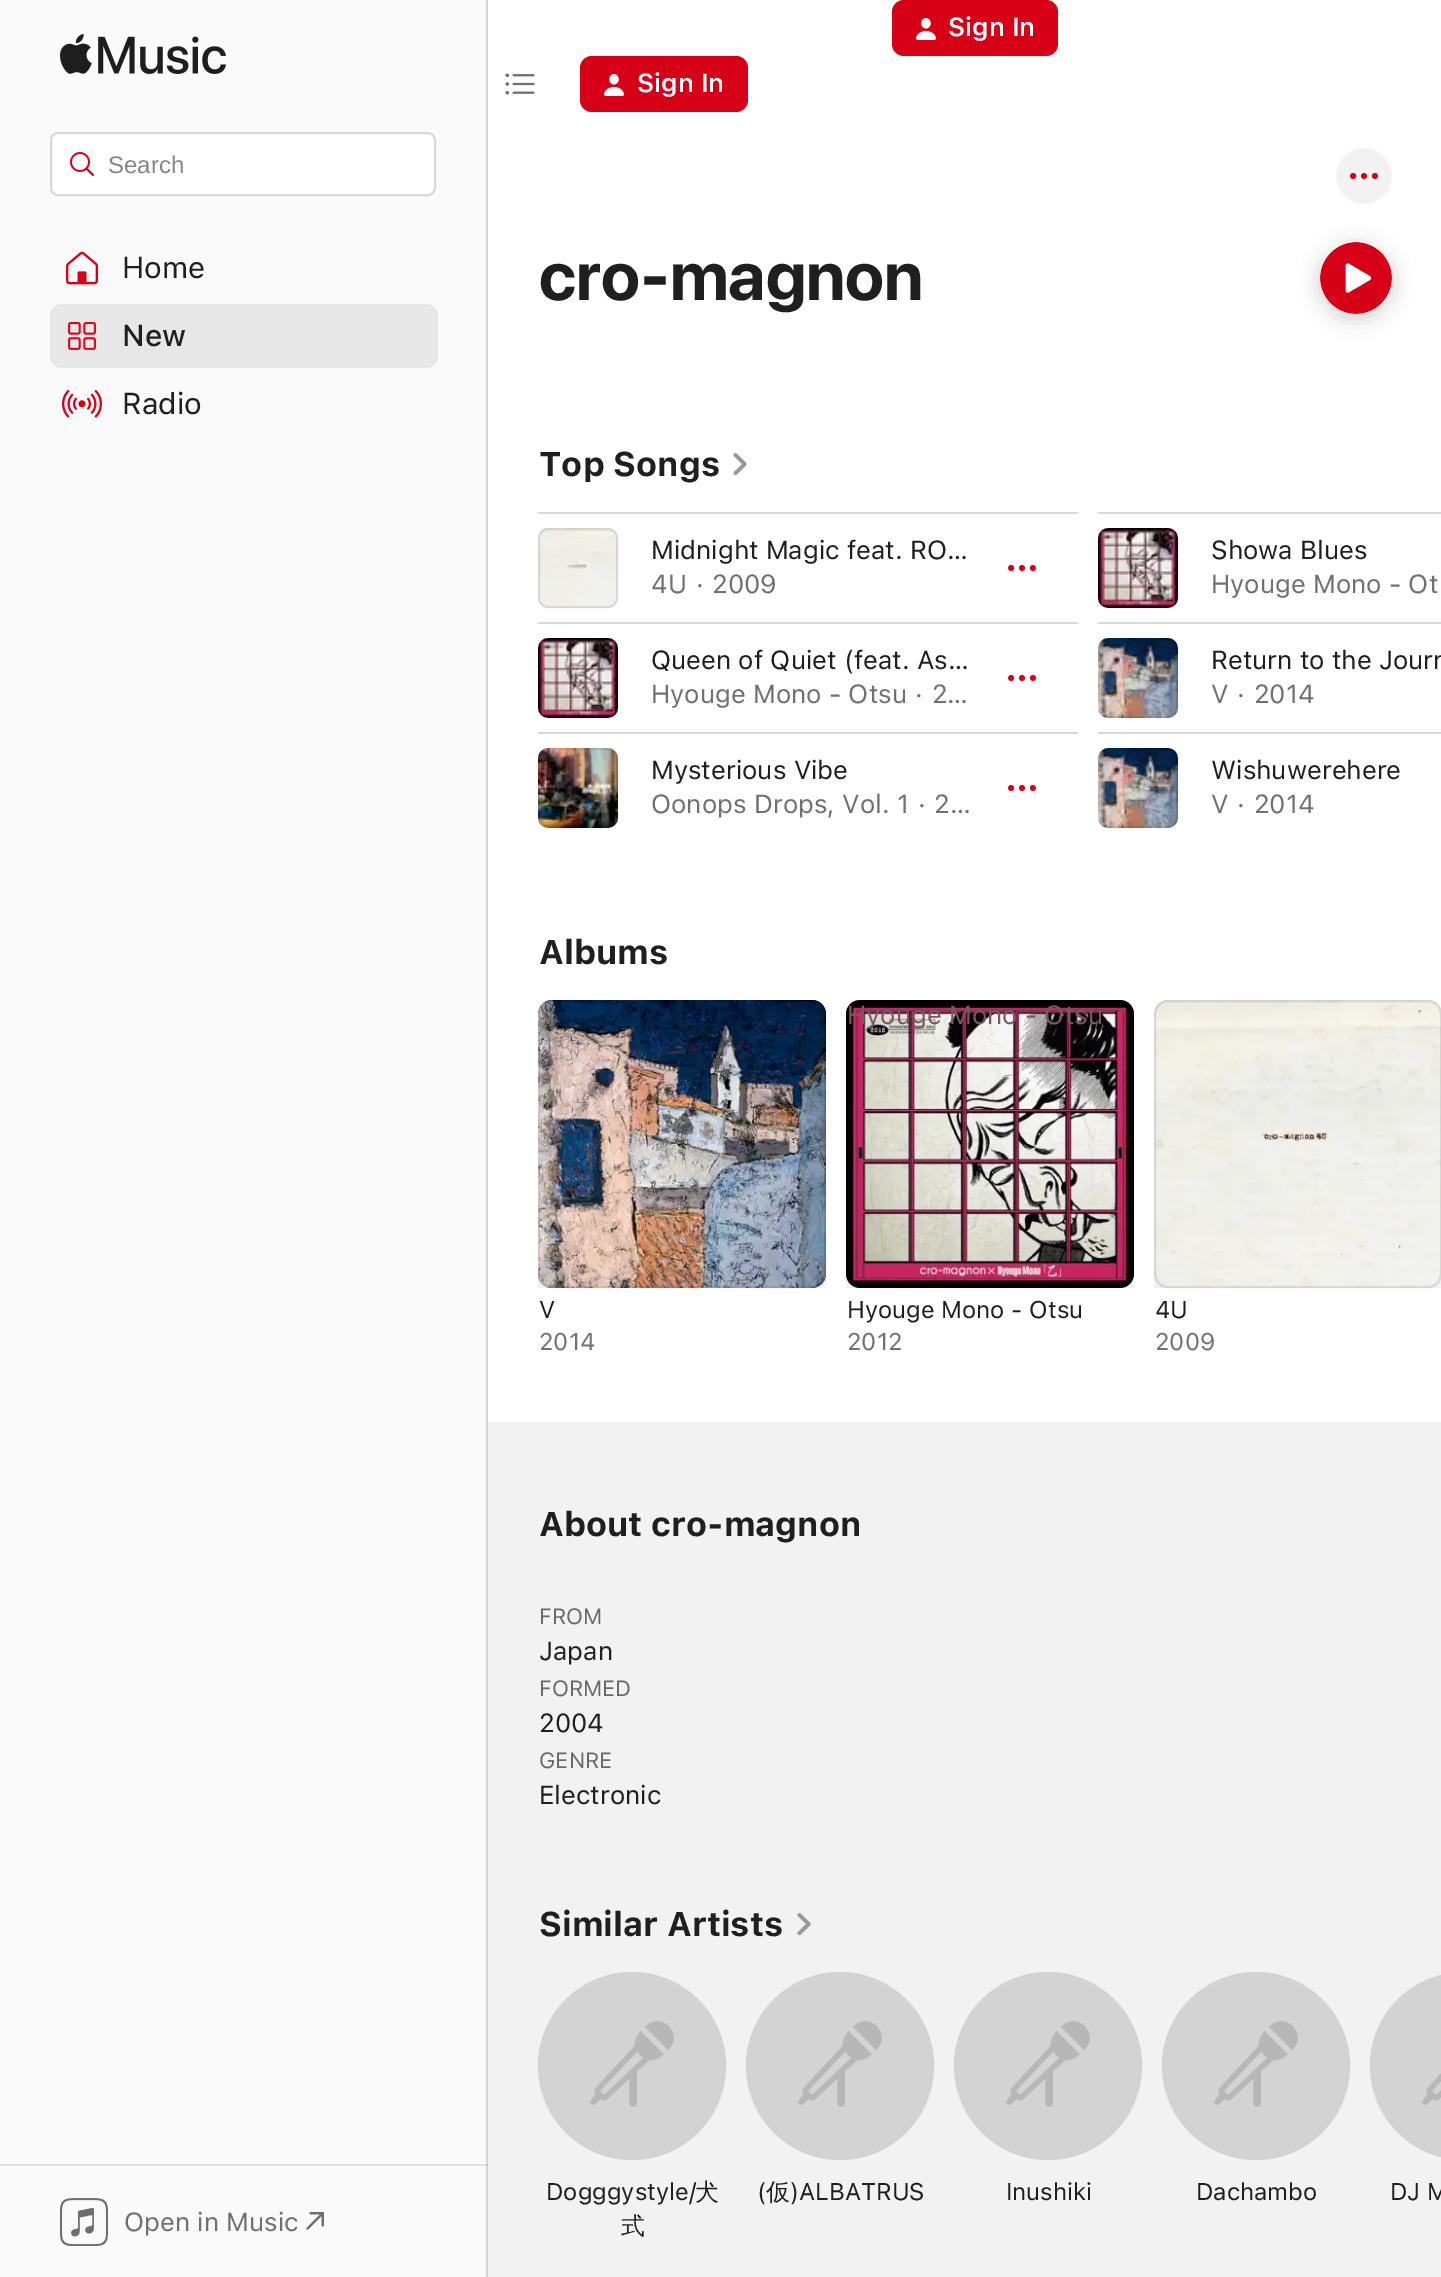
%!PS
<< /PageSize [1441 2277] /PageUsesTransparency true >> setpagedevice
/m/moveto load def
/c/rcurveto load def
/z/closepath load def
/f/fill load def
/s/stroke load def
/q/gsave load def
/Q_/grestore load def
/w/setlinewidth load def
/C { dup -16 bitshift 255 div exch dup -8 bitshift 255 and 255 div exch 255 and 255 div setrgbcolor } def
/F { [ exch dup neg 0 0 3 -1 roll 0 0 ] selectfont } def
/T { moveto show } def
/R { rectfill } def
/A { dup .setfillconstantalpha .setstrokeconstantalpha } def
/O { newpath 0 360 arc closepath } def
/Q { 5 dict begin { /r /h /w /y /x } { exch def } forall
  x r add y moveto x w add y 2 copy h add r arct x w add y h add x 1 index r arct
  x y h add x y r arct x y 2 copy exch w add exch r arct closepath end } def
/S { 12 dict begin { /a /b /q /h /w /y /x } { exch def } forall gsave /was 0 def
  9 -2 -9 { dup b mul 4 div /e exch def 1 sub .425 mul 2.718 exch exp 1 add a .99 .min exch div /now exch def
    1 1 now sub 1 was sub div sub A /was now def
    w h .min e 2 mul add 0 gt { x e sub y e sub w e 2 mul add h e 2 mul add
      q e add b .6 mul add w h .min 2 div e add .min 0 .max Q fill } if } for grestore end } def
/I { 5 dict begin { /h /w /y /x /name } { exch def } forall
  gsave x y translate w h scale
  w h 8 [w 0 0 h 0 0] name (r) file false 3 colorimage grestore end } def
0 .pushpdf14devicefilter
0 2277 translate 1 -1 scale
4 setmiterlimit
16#FFFFFF C
0 0 1441 2277 R
16#D60017 C
892 0 166 56 12 Q f
(1.rgb) 916 18 20 22 I
/SF-SemiBold 26 F
16#FFFFFF C
(Sign In) 948 36 T
(2.rgb) 505 73 30 22 I
16#D60017 C
580 56 168 56 12 Q f
(1.rgb) 604 74 20 22 I
16#FFFFFF C
(Sign In) 637 92 T
16#FAFAFA C
0 0 486 2277 R
16#E1E1E1 C
0 2164 488 2 R
16#D5D5D5 C
486 0 2 2277 R
16#C0C0C0 C
486 2164 2 2 R
(3.rgb) 60 34 166 40 I
16#FFFFFF C
51 133 384 62 7 Q q f Q_
16#D9D9D9 C
2 w
s
(4.rgb) 70 152 24 24 I
/LiberationSans-Regular 24 F
16#858585 C
(Search) 108 173 T
(5.rgb) 66 251 32 34 I
/SF-Regular 30 F
16#1F1F1F C
(Home) 122 278 T
16#E7E7E8 C
50 304 388 64 12 Q f
(6.rgb) 68 321 28 29 I
/SF-Medium 30 F
16#1F1F1F C
(New) 122 346 T
(7.rgb) 62 390 40 28 I
/SF-Regular 30 F
(Radio) 122 414 T
(8.rgb) 60 2198 48 48 I
/SF-Regular 26 F
16#707070 C
(Open in Music) 124 2231 T
(9.rgb) 306 2212 18 18 I
(10.rgb) 1336 148 56 56 I
/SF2-Bold 68 F
16#1F1F1F C
(cro-magnon) 539 300 T
16#000000 C
1320 246 72 72 36 10 .2 S
(11.rgb) 1320 242 72 72 I
/SF-Bold 34 F
16#1F1F1F C
(Top Songs) 539 476 T
(12.rgb) 733 453 14 23 I
16#D9D9D9 C
538 512 540 2 R
(13.rgb) 538 528 80 80 I
0.1 A
16#000000 C
539 529 78 78 9 Q s
/SF-Regular 26 F
1 A
16#1F1F1F C
(Midnight Magic feat. RO…) 651 559 T
16#707070 C
(4U · 2009) 651 593 T
(14.rgb) 1008 564 28 8 I
16#D9D9D9 C
1098 512 343 2 R
(15.rgb) 1098 528 80 80 I
0.1 A
16#000000 C
1099 529 78 78 9 Q s
1 A
16#1F1F1F C
(Showa Blues) 1211 559 T
16#707070 C
(Hyouge Mono - Ot) 1211 593 T
16#D9D9D9 C
538 622 540 2 R
(15.rgb) 538 638 80 80 I
0.1 A
16#000000 C
539 639 78 78 9 Q s
1 A
16#1F1F1F C
(Queen of Quiet \(feat. As…) 651 669 T
16#707070 C
(Hyouge Mono - Otsu · 2…) 651 703 T
(14.rgb) 1008 674 28 8 I
16#D9D9D9 C
1098 622 343 2 R
(16.rgb) 1098 638 80 80 I
0.1 A
16#000000 C
1099 639 78 78 9 Q s
1 A
16#1F1F1F C
(Return to the Journ) 1211 669 T
16#707070 C
(V · 2014) 1211 703 T
16#D9D9D9 C
538 732 540 2 R
(17.rgb) 538 748 80 80 I
0.1 A
16#000000 C
539 749 78 78 9 Q s
1 A
16#1F1F1F C
(Mysterious Vibe) 651 779 T
16#707070 C
(Oonops Drops, Vol. 1 · 2…) 651 813 T
(14.rgb) 1008 784 28 8 I
16#D9D9D9 C
1098 732 343 2 R
(16.rgb) 1098 748 80 80 I
0.1 A
16#000000 C
1099 749 78 78 9 Q s
1 A
16#1F1F1F C
(Wishuwerehere) 1211 779 T
16#707070 C
(V · 2014) 1211 813 T
/SF-Bold 34 F
16#1F1F1F C
(Albums) 539 964 T
(18.rgb) 538 1000 288 288 I
0.1 A
16#000000 C
539 1001 286 286 13 Q s
/SF-Regular 26 F
1 A
16#707070 C
(V) 539 1024 T
/SF-Regular 24 F
16#1F1F1F C
(V) 539 1318 T
16#707070 C
(2014) 539 1350 T
(19.rgb) 846 1000 288 288 I
0.1 A
16#000000 C
847 1001 286 286 13 Q s
/SF-Regular 26 F
1 A
16#795864 C
(Hyouge Mono - Otsu) 847 1024 T
/SF-Regular 24 F
16#1F1F1F C
(Hyouge Mono - Otsu) 847 1318 T
16#707070 C
(2012) 847 1350 T
(20.rgb) 1154 1000 287 288 I
0.1 A
16#000000 C
1155 1001 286 286 13 Q s
1 A
16#1F1F1F C
(4U) 1155 1318 T
16#707070 C
(2009) 1155 1350 T
16#F2F2F2 C
488 1422 953 855 R
/SF-Bold 34 F
16#1F1F1F C
(About cro-magnon) 539 1536 T
/SF-Regular 22 F
16#6A6A6A C
(FROM) 539 1624 T
/SF-Regular 26 F
16#1F1F1F C
(Japan) 539 1660 T
/SF-Regular 22 F
16#6A6A6A C
(FORMED) 539 1696 T
/SF-Regular 26 F
16#1F1F1F C
(2004) 539 1732 T
/SF-Regular 22 F
16#6A6A6A C
(GENRE) 539 1768 T
/SF-Regular 26 F
16#1F1F1F C
(Electronic) 539 1804 T
/SF-Bold 34 F
(Similar Artists) 539 1936 T
(21.rgb) 797 1913 14 23 I
0.1 A
16#808080 C
632 2066 93 O s
1 A
16#EBEBEB C
632 2066 94 O f
(22.rgb) 590 2021 84 86 I
0.1 A
16#000000 C
632 1972 m 52 0 94 42 94 94 c 0 52 -42 94 -94 94 c -52 0 -94 -42 -94 -94 c 0 -52 42 -94 94 -94 c z f
/SF-Regular 24 F
1 A
16#1F1F1F C
(Dogggystyle/) 546 2200 T
/WenQuanYiZenHei-Medium 24 F
(犬) 695 2200 T
(式) 621 2234 T
0.1 A
16#808080 C
840 2066 93 O s
1 A
16#EBEBEB C
840 2066 94 O f
(22.rgb) 798 2021 84 86 I
0.1 A
16#000000 C
840 1972 m 52 0 94 42 94 94 c 0 52 -42 94 -94 94 c -52 0 -94 -42 -94 -94 c 0 -52 42 -94 94 -94 c z f
/SF-Regular 24 F
1 A
16#1F1F1F C
(\() 757 2200 T
/WenQuanYiZenHei-Medium 24 F
(仮) 766 2200 T
/SF-Regular 24 F
(\)ALBATRUS) 790 2200 T
0.1 A
16#808080 C
1048 2066 93 O s
1 A
16#EBEBEB C
1048 2066 94 O f
(22.rgb) 1006 2021 84 86 I
0.1 A
16#000000 C
1048 1972 m 52 0 94 42 94 94 c 0 52 -42 94 -94 94 c -52 0 -94 -42 -94 -94 c 0 -52 42 -94 94 -94 c z f
1 A
16#1F1F1F C
(Inushiki) 1006 2200 T
0.1 A
16#808080 C
1256 2066 93 O s
1 A
16#EBEBEB C
1256 2066 94 O f
(22.rgb) 1214 2021 84 86 I
0.1 A
16#000000 C
1256 1972 m 52 0 94 42 94 94 c 0 52 -42 94 -94 94 c -52 0 -94 -42 -94 -94 c 0 -52 42 -94 94 -94 c z f
1 A
16#1F1F1F C
(Dachambo) 1196 2200 T
0.1 A
16#808080 C
1371 1973 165 186 93 Q s
q
1370 1972 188 188 94 Q clip newpath
1370 1972 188 188 94 Q clip newpath
1 A
16#EBEBEB C
1370 1975 71 182 R
Q_
1 A
(23.rgb) 1422 2073 19 32 I
0.1 A
16#000000 C
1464 1972 m 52 0 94 42 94 94 c 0 52 -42 94 -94 94 c -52 0 -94 -42 -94 -94 c 0 -52 42 -94 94 -94 c z f
1 A
16#1F1F1F C
(DJ M) 1390 2200 T
.poppdf14devicefilter showpage
